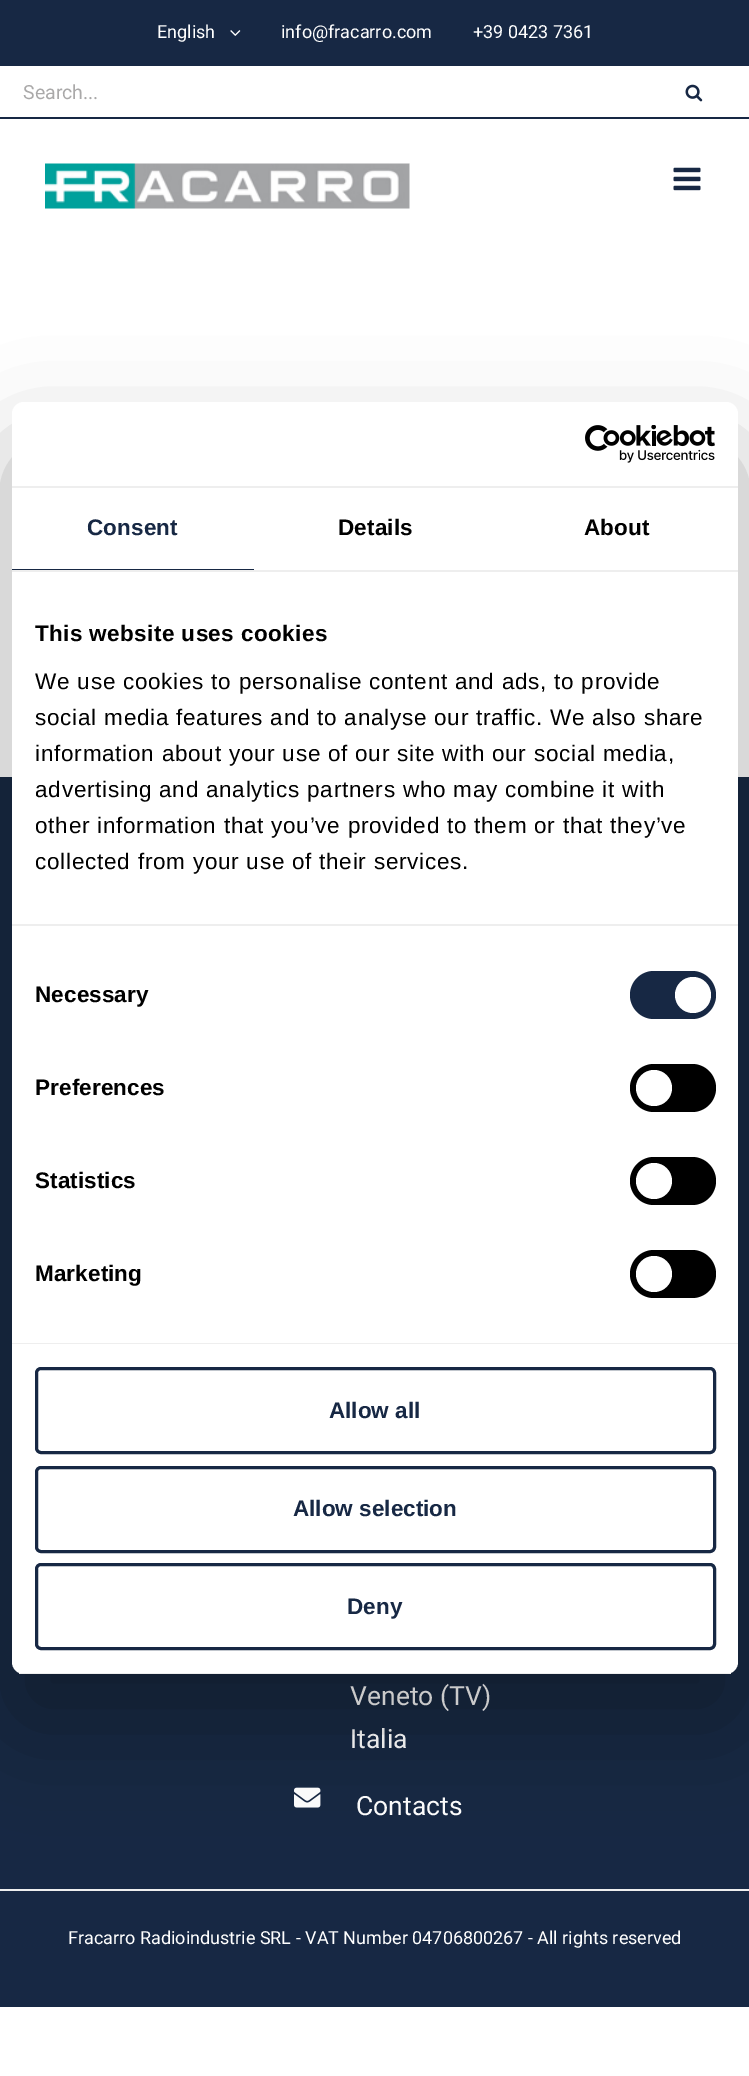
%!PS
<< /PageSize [749 2076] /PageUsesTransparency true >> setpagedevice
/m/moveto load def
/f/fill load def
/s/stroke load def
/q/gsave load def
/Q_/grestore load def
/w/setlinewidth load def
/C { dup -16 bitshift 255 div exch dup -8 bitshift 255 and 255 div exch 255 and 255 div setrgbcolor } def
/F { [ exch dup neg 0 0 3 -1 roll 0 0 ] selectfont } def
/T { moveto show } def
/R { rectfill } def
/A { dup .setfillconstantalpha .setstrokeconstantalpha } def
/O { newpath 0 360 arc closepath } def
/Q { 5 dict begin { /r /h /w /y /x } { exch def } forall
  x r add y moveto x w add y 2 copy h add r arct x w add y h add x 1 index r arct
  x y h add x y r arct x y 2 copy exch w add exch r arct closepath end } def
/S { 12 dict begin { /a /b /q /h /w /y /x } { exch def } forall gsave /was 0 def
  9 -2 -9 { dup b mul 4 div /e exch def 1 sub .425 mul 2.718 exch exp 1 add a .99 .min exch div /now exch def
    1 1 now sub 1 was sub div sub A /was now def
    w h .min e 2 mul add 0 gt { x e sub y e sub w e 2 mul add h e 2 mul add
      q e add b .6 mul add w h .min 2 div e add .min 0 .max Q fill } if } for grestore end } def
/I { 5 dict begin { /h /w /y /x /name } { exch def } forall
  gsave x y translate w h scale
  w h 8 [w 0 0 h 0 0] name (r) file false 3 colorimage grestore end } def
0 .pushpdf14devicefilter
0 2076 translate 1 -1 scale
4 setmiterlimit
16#FFFFFF C
0 0 749 2076 R
16#172844 C
0 0 749 119 R
16#FFFFFF C
0 66 749 51 R
/Roboto-Regular 18 F
(English) 157 38 T
(1.rgb) 230 30 11 6 I
(info@fracarro.com) 281 38 T
(+39 0423 7361) 473 38 T
/Roboto-Regular 19.5 F
16#AAA9A9 C
(Search...) 23 99 T
(2.rgb) 685 84 18 18 I
(3.rgb) 45 163 365 46 I
(4.rgb) 673 167 28 24 I
16#172844 C
0 777 749 1112 R
/Roboto-Regular 26.5 F
16#FFFFFF C
(Veneto \(TV\)) 350 1705 T
(Italia) 350 1748 T
(5.rgb) 294 1787 27 21 I
(Contacts) 356 1815 T
16#172844 C
0 1891 749 116 R
16#EEEEEE C
0 1889 749 2 R
/Roboto-Regular 18 F
16#FFFFFF C
(Fracarro Radioindustrie SRL - VAT Number 04706800267 - All rights reserved) 68 1944 T
16#000000 C
12 450 726 1272 12 51 .3 S
16#FFFFFF C
12 402 726 1272 12 Q f
16#EEEEEE C
12 486 726 2 R
(6.rgb) 585 425 130 38 I
12 570 726 2 R
16#172844 C
12 569 242 1 R
/LiberationSans-Bold 22.5 F
87 535 m .1 0 (Consent) ashow
16#000000 C
338 535 m .1 0 (Details) ashow
584 535 m .1 0 (About) ashow
16#EEEEEE C
12 924 726 2 R
16#000000 C
35 641 m .4 0 (This website uses cookies) ashow
/LiberationSans-Regular 22.5 F
35 689 m .75 0 (We use cookies to personalise content and ads, to provide) ashow
35 725 m .75 0 (social media features and to analyse our traffic. We also share) ashow
35 761 m .75 0 (information about your use of our site with our social media,) ashow
35 797 m .75 0 (advertising and analytics partners who may combine it with) ashow
35 833 m .75 0 (other information that you’ve provided to them or that they’ve) ashow
35 869 m .75 0 (collected from your use of their services.) ashow
16#EEEEEE C
12 1343 726 1 R
/LiberationSans-Bold 22.5 F
16#000000 C
35 1002 m .1 0 (Necessary) ashow
16#172844 C
630 971 86 48 24 Q f
16#FFFFFF C
693 995 18 O f
16#000000 C
35 1095 m .1 0 (Preferences) ashow
630 1064 86 48 24 Q f
16#FFFFFF C
654 1088 18 O f
16#000000 C
35 1188 m .1 0 (Statistics) ashow
630 1157 86 48 24 Q f
16#FFFFFF C
654 1181 18 O f
16#000000 C
35 1281 m .1 0 (Marketing) ashow
630 1250 86 48 24 Q f
16#FFFFFF C
654 1274 18 O f
q
12 402 726 1272 12 Q clip newpath
16#EEEEEE C
12 1673 726 1 R
Q_
16#172844 C
3 w
36.5 1368.5 678 84 4.5 Q s
(Allow all) 329 1418 T
36.5 1467.5 678 84 4.5 Q s
(Allow selection) 293 1516 T
36.5 1564.5 678 84 4.5 Q s
(Deny) 347 1614 T
.poppdf14devicefilter showpage
